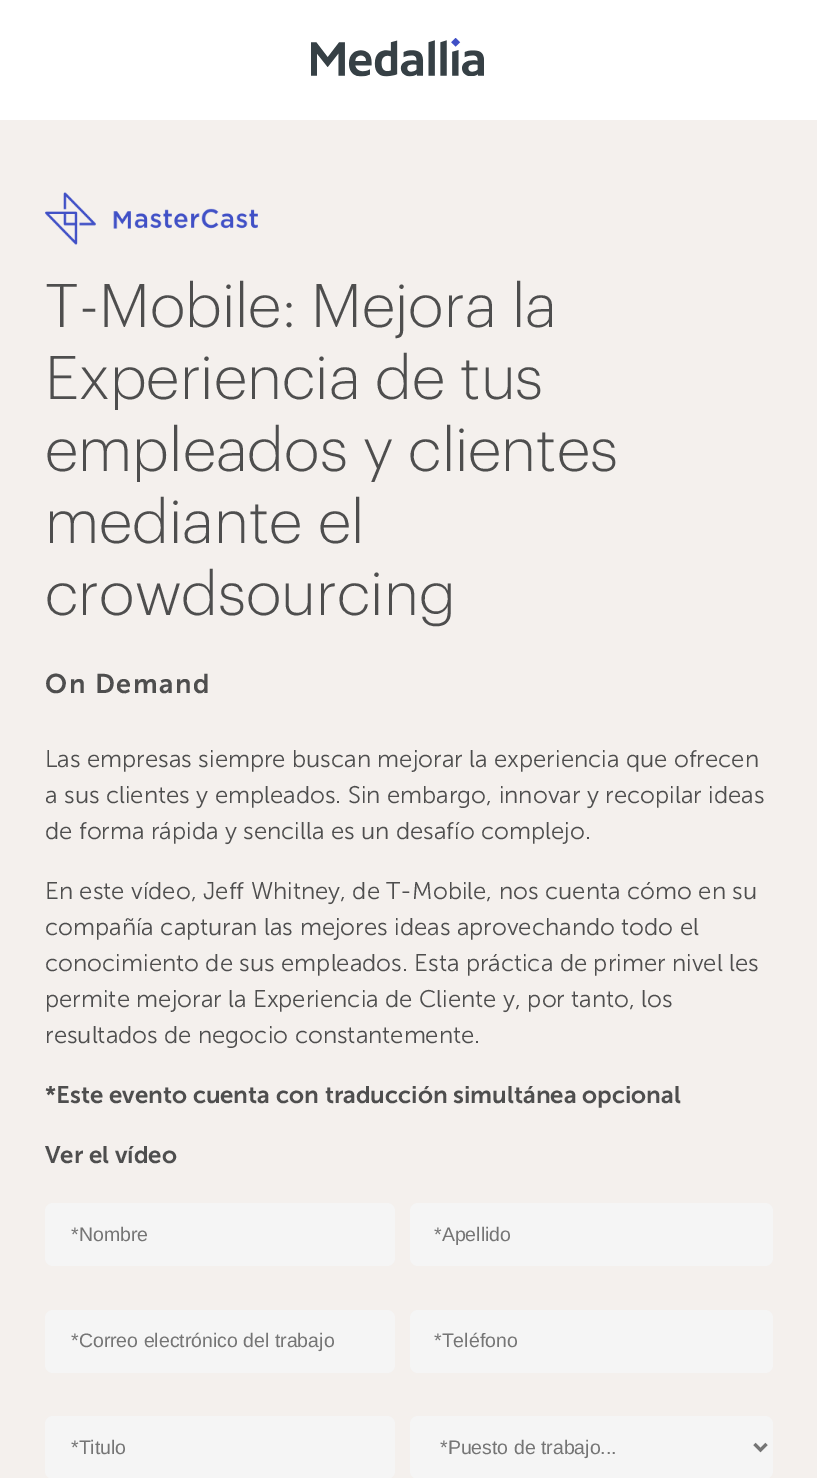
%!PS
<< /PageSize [817 1478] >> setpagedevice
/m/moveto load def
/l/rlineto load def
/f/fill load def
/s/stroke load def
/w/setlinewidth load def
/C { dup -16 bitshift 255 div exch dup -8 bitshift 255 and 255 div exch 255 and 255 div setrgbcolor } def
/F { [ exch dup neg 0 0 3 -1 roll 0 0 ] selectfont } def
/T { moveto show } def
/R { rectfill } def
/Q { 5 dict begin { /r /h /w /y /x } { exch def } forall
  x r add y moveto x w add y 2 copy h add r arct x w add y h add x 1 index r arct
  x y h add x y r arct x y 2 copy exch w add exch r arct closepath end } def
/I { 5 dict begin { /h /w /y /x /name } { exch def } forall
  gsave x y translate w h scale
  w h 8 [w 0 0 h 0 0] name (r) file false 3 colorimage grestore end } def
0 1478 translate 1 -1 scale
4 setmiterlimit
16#FFFFFF C
0 0 817 1478 R
(1.rgb) 311 38 173 39 I
16#F4F0ED C
0 120 817 1358 R
(2.rgb) 45 192 213 53 I
/Graphik-Light 60 F
16#4E4E4E C
(T-Mobile: Mejora la) 45 327 T
(Experiencia de tus) 45 399 T
(empleados y clientes) 45 471 T
(mediante el) 45 543 T
(crowdsourcing) 45 615 T
/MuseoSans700-SemiBold 27 F
45 693 m 1.5 0 (On Demand) ashow
/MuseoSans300-Light 24 F
(Las empresas siempre buscan mejorar la experiencia que ofrecen) 45 767 T
(a sus clientes y empleados. Sin embargo, innovar y recopilar ideas) 45 803 T
(de forma rápida y sencilla es un desafío complejo.) 45 839 T
(En este vídeo, Jeff Whitney, de T-Mobile, nos cuenta cómo en su) 45 899 T
(compañía capturan las mejores ideas aprovechando todo el) 45 935 T
(conocimiento de sus empleados. Esta práctica de primer nivel les) 45 971 T
(permite mejorar la Experiencia de Cliente y, por tanto, los) 45 1007 T
(resultados de negocio constantemente.) 45 1043 T
/MuseoSans700-SemiBold 24 F
(*Este evento cuenta con traducción simultánea opcional) 45 1103 T
(Ver el vídeo) 45 1163 T
16#F5F5F5 C
45 1203 350 63 8 Q f
/LiberationSans-Regular 19.5 F
16#757575 C
(*Nombre) 71 1241 T
16#F5F5F5 C
410 1203 363 63 8 Q f
16#757575 C
(*Apellido) 434 1241 T
16#F5F5F5 C
45 1310 350 63 8 Q f
16#757575 C
(*Correo electrónico del trabajo) 71 1347 T
16#F5F5F5 C
410 1310 363 63 8 Q f
16#757575 C
(*Teléfono) 434 1347 T
16#F5F5F5 C
45 1416 350 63 8 Q f
16#757575 C
(*Titulo) 71 1454 T
16#F5F5F5 C
410 1416 363 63 8 Q f
16#757575 C
3 w
754.5 1444 m 6 6 l 6 -6 l s
(*Puesto de trabajo...) 440 1454 T
showpage
